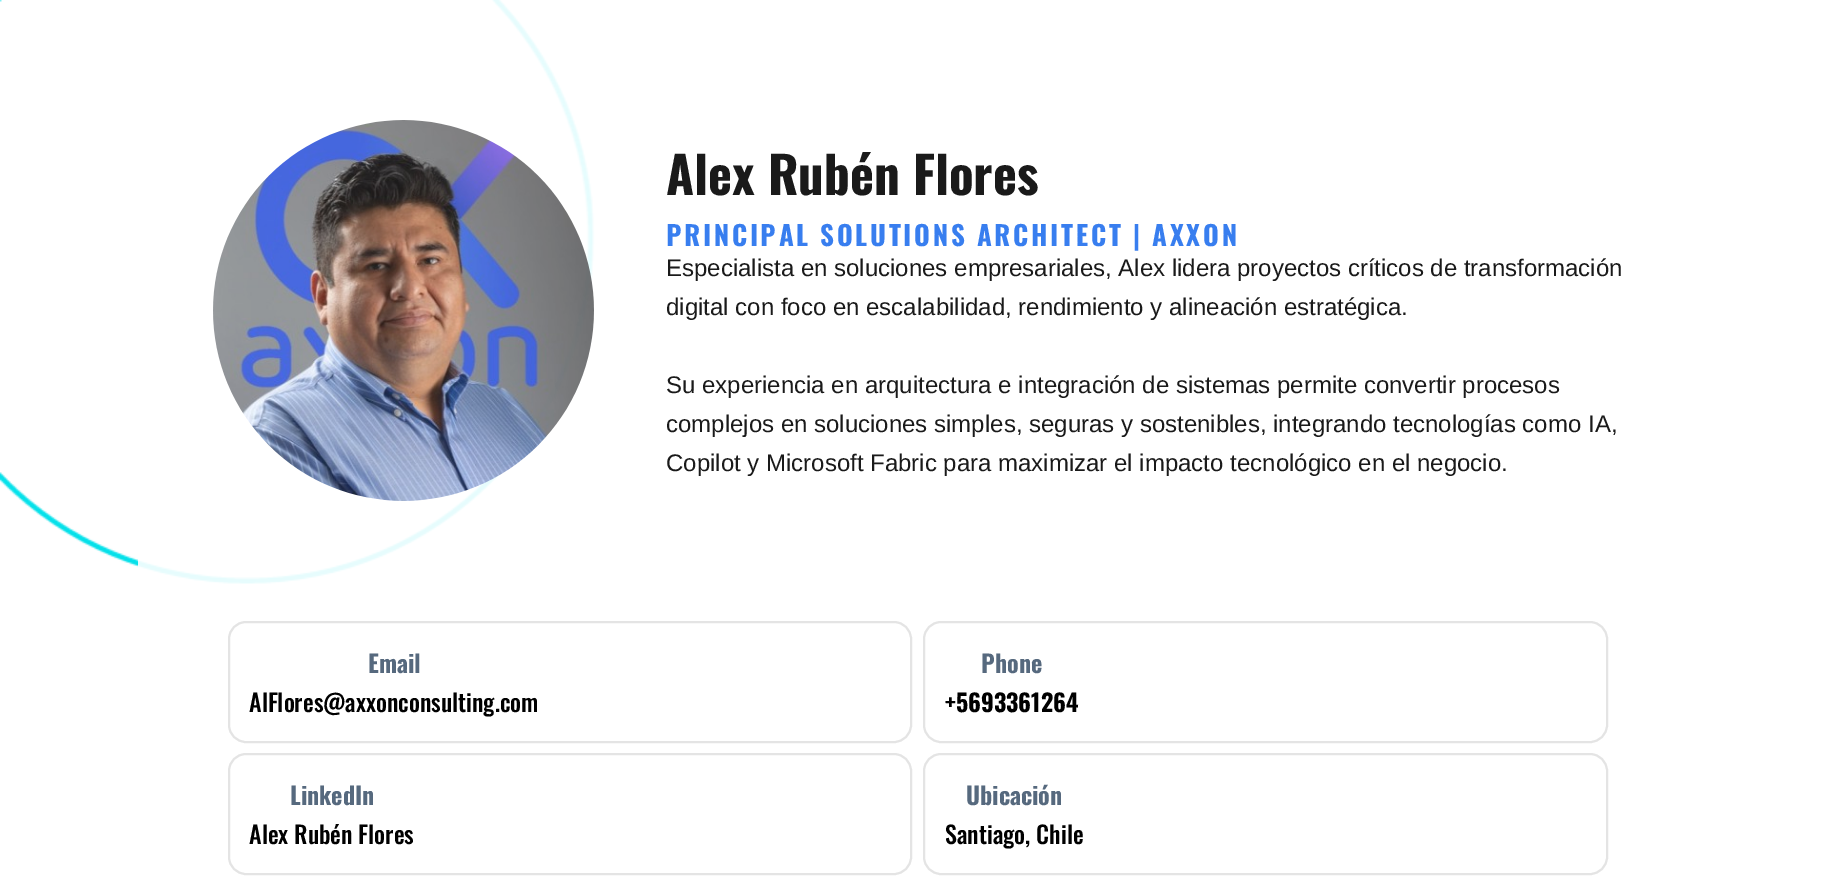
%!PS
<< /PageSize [1835 889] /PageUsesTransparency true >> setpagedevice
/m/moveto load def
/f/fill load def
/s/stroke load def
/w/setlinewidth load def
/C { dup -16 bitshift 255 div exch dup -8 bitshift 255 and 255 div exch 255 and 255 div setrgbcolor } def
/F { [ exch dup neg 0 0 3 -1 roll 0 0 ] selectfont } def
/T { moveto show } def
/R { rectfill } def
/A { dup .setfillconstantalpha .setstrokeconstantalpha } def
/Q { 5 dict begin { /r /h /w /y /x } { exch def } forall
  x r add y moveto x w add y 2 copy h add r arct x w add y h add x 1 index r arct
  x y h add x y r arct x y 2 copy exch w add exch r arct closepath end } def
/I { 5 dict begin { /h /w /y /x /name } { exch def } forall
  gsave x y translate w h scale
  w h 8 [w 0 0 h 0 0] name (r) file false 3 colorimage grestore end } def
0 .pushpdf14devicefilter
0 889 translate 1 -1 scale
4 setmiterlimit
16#FFFFFF C
0 0 1835 889 R
(1.rgb) 0 0 595 584 I
0.9 A
138 0 1560 621 45 Q f
1 A
(2.rgb) 213 120 381 381 I
/Oswald-Bold 51 F
16#1A1A1A C
(Alex Rubén Flores) 666 195 T
/Oswald-Bold 27 F
16#387EEF C
666 246 m 2.7 0 (PRINCIPAL SOLUTIONS ARCHITECT | AXXON) ashow
/LiberationSans-Regular 24 F
16#1A1A1A C
(Especialista en soluciones empresariales, Alex lidera proyectos críticos de transformación) 666 276 T
(digital con foco en escalabilidad, rendimiento y alineación estratégica.) 666 315 T
(Su experiencia en arquitectura e integración de sistemas permite convertir procesos) 666 393 T
(complejos en soluciones simples, seguras y sostenibles, integrando tecnologías como IA,) 666 432 T
(Copilot y Microsoft Fabric para maximizar el impacto tecnológico en el negocio.) 666 471 T
16#E4E4E4 C
2 w
229 622 682 120 17 Q s
/Oswald-Bold 24 F
16#56697E C
(Email) 368 673 T
/Oswald-Medium 24 F
16#000000 C
(AlFlores@axxonconsulting.com) 249 712 T
16#E4E4E4 C
924 622 683 120 17 Q s
/Oswald-Bold 24 F
16#56697E C
(Phone) 981 673 T
16#000000 C
(+5693361264) 945 712 T
16#E4E4E4 C
229 754 682 120 17 Q s
16#56697E C
(LinkedIn) 290 805 T
/Oswald-Medium 24 F
16#000000 C
(Alex Rubén Flores) 249 844 T
16#E4E4E4 C
924 754 683 120 17 Q s
/Oswald-Bold 24 F
16#56697E C
(Ubicación) 966 805 T
/Oswald-Medium 24 F
16#000000 C
(Santiago, Chile) 945 844 T
.poppdf14devicefilter showpage
